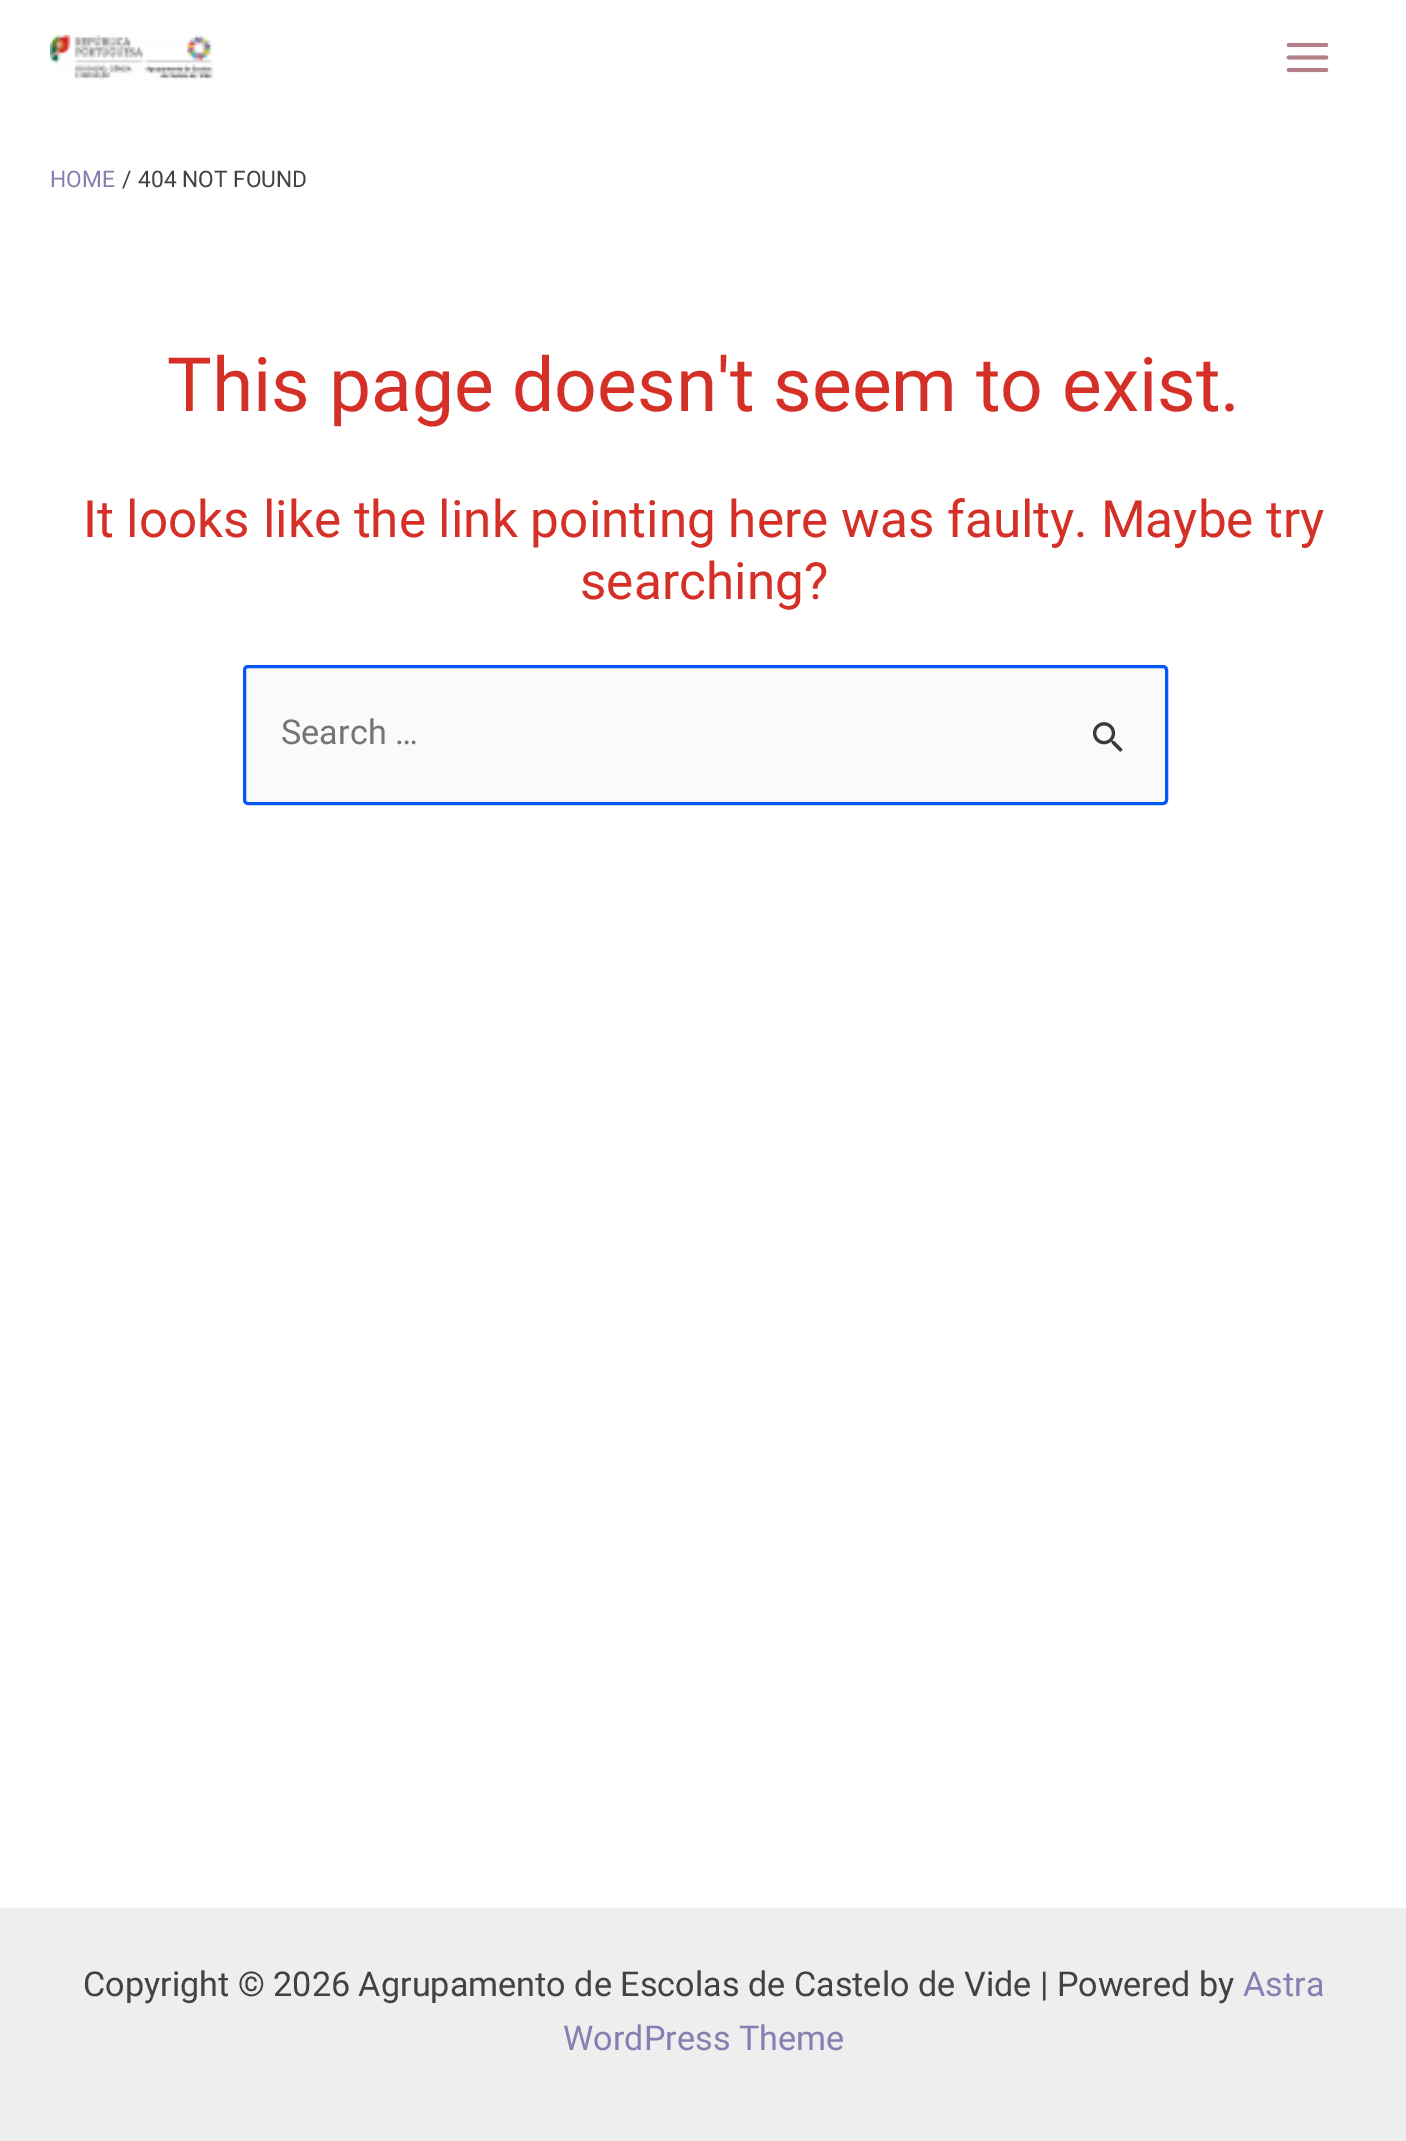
%!PS
<< /PageSize [1406 2141] >> setpagedevice
/f/fill load def
/s/stroke load def
/q/gsave load def
/Q_/grestore load def
/w/setlinewidth load def
/C { dup -16 bitshift 255 div exch dup -8 bitshift 255 and 255 div exch 255 and 255 div setrgbcolor } def
/F { [ exch dup neg 0 0 3 -1 roll 0 0 ] selectfont } def
/T { moveto show } def
/R { rectfill } def
/Q { 5 dict begin { /r /h /w /y /x } { exch def } forall
  x r add y moveto x w add y 2 copy h add r arct x w add y h add x 1 index r arct
  x y h add x y r arct x y 2 copy exch w add exch r arct closepath end } def
/I { 5 dict begin { /h /w /y /x /name } { exch def } forall
  gsave x y translate w h scale
  w h 8 [w 0 0 h 0 0] name (r) file false 3 colorimage grestore end } def
0 2141 translate 1 -1 scale
4 setmiterlimit
16#FFFFFF C
0 0 1406 2141 R
(1.rgb) 50 35 163 45 I
(2.rgb) 1286 42 43 31 I
/Roboto-Regular 22.75 F
16#887EB2 C
(HOME) 50 187 T
16#424242 C
(/) 122 187 T
(404 NOT FOUND) 138 187 T
/Roboto-Regular 75 F
16#D53027 C
(This page doesn't seem to exist.) 167 411 T
/Roboto-Regular 51.3 F
(It looks like the link pointing here was faulty. Maybe try) 83 537 T
(searching?) 580 599 T
16#FAFAFA C
244.5 666.5 922 137 3.5 Q q f Q_
16#0558F5 C
3 w
s
/Roboto-Regular 34.2 F
16#757575 C
(Search …) 281 744 T
(3.rgb) 1093 722 30 30 I
16#EEEEEE C
0 1908 1406 233 R
16#424242 C
(Copyright © 2026 Agrupamento de Escolas de Castelo de Vide | Powered by) 83 1996 T
16#887EB2 C
(Astra) 1243 1996 T
(WordPress Theme) 563 2050 T
showpage
